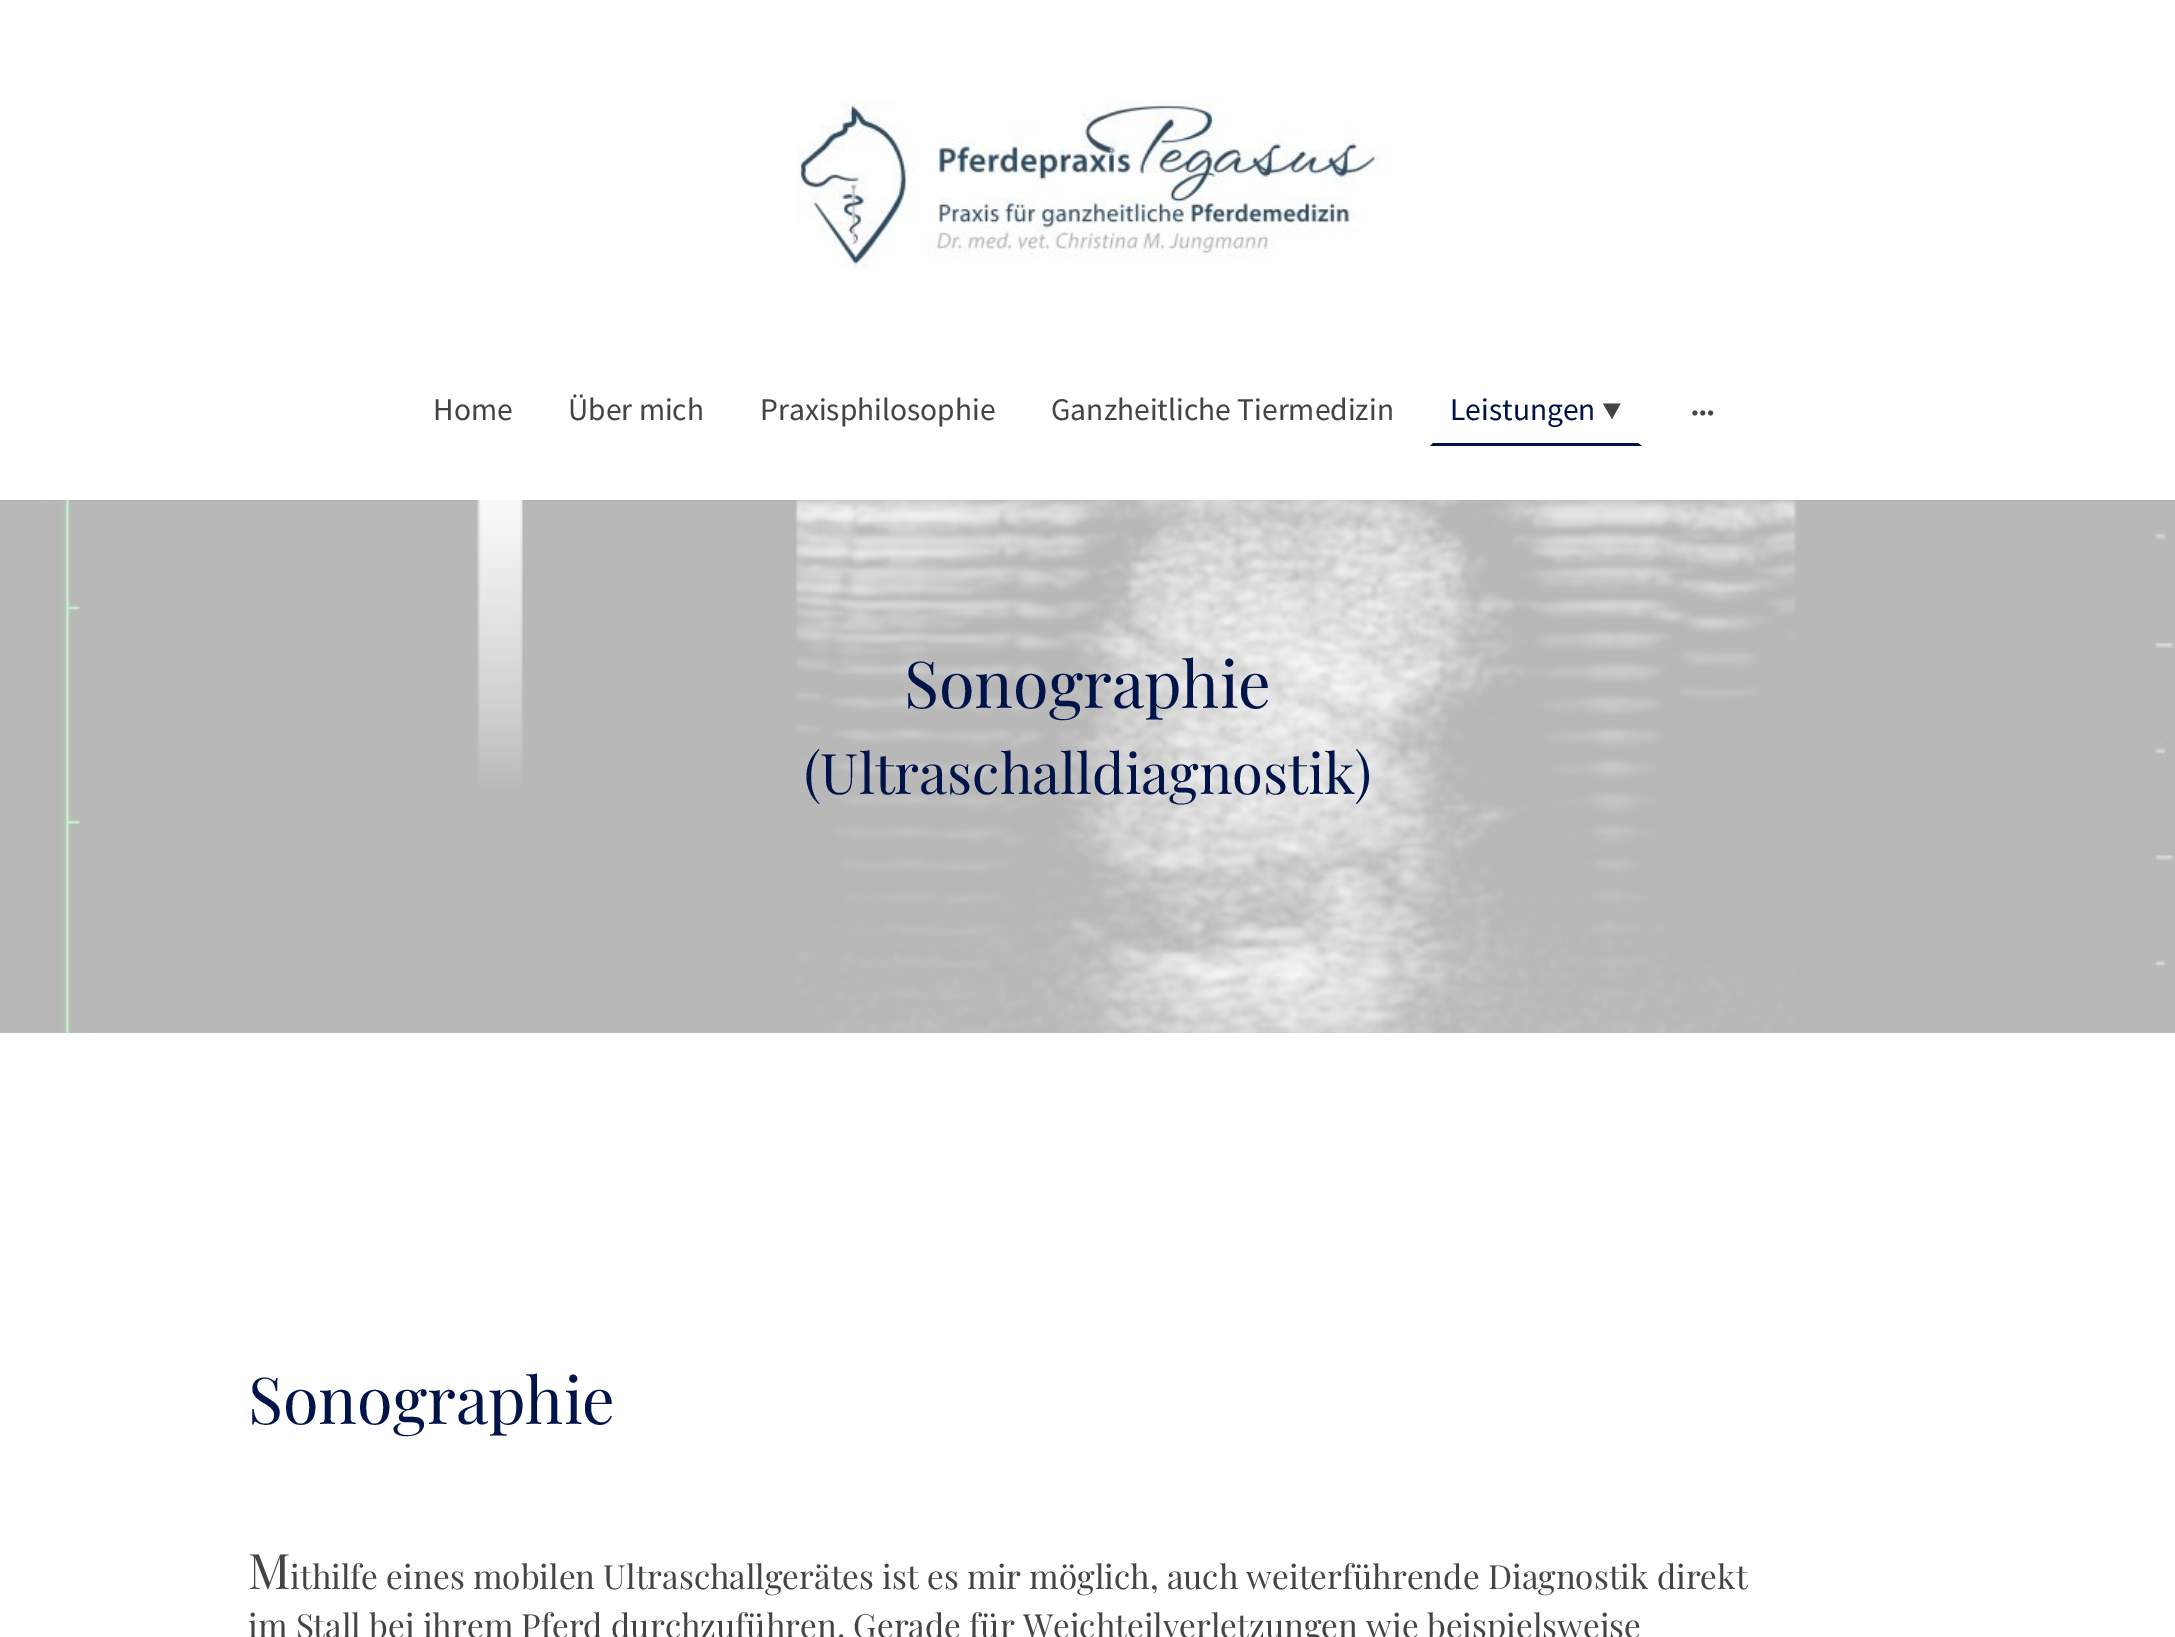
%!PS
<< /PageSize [2175 1637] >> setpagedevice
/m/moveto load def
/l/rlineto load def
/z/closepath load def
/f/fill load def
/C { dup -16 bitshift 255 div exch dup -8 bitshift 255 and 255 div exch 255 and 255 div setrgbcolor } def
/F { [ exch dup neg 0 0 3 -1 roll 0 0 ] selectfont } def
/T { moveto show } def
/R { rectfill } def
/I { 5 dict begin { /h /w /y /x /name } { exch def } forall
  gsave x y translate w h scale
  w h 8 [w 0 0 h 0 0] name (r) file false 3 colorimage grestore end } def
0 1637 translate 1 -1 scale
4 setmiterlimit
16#FFFFFF C
0 0 2175 1637 R
(1.rgb) 796 101 596 169 I
/SourceSansPro-Regular 31.5 F
16#444444 C
(Home) 433 420 T
(Über mich) 568 420 T
(Praxisphilosophie) 760 420 T
(Ganzheitliche Tiermedizin) 1051 420 T
16#00144A C
1642 446 m -212 0 l 3 -3 l 205 0 l z f
(Leistungen) 1450 420 T
16#444444 C
1620.5 403.5 m -8.5 15.5 l -9 -15.5 l z f
(2.rgb) 1692 410 22 6 I
(3.rgb) 0 500 2175 533 I
/PlayfairDisplay-Regular 64.75 F
16#00144A C
(Sonographie) 904 708 T
/PlayfairDisplay-Regular 56 F
(\(Ultraschalldiagnostik\)) 804 794 T
/PlayfairDisplay-Regular 64.75 F
(Sonographie) 248 1424 T
/PlayfairDisplay-Regular 49 F
16#444444 C
(M) 248 1589 T
/PlayfairDisplay-Regular 33.25 F
(ithilfe eines mobilen Ultraschallgerätes ist es mir möglich, auch weiterführende Diagnostik direkt) 290 1589 T
(im Stall bei ihrem Pferd durchzuführen. Gerade für Weichteilverletzungen wie beispielsweise) 248 1638 T
showpage
